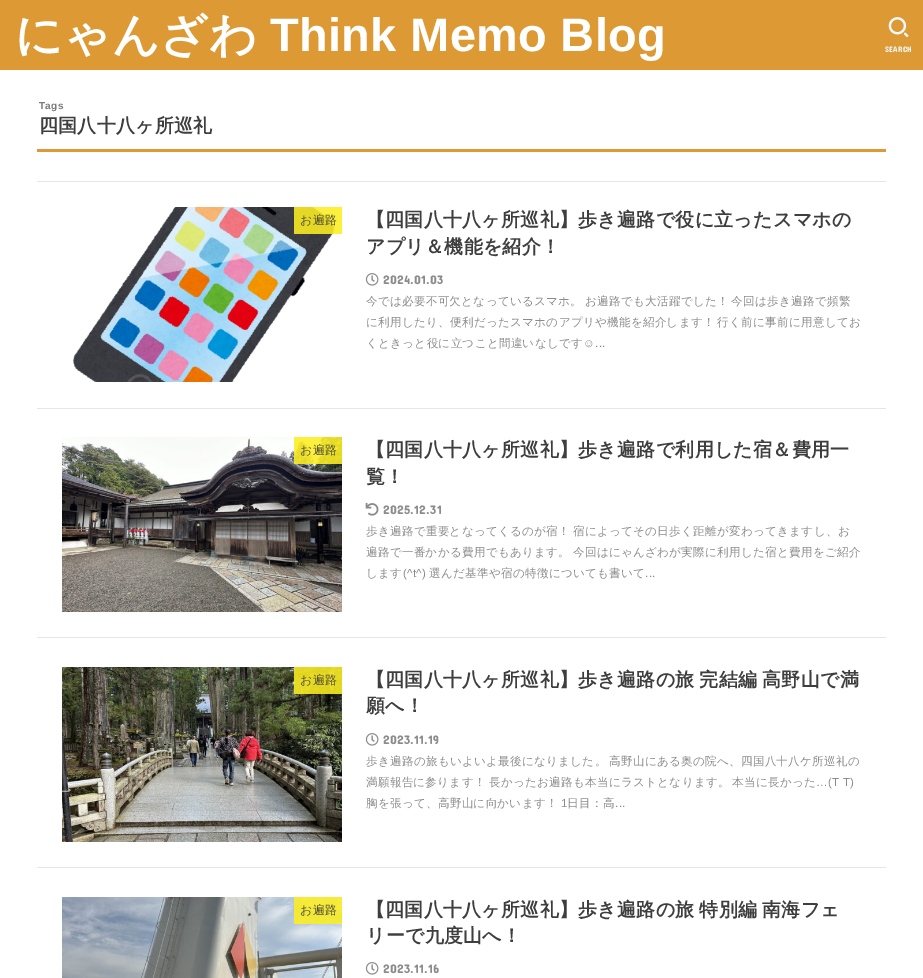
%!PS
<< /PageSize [923 978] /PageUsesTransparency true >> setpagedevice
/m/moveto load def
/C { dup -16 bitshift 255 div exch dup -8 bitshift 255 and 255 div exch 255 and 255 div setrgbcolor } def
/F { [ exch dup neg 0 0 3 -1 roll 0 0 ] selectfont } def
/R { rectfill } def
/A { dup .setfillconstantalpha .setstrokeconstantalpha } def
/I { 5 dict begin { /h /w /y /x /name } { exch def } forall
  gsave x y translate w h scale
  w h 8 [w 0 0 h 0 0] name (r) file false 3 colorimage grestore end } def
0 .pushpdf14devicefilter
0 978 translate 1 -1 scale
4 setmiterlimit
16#FFFFFF C
0 0 923 978 R
16#DD9933 C
0 0 923 70 R
/WenQuanYiZenHei-Bold 47 F
16#FFFFFF C
15 51 m .3 0 (にゃんざわ) ashow
/LiberationSans-Bold 47 F
270 51 m .3 0 (Think Memo Blog) ashow
(1.rgb) 888 17 21 20 I
/ConcertOne-Regular 8 F
16#EDF9FC C
885 52 m .25 0 (SEARCH) ashow
16#DD9933 C
37 149 849 3 R
/LiberationSans-Bold 10 F
16#787878 C
39 109 m .3 0 (Tags) ashow
/WenQuanYiZenHei-Bold 18.95 F
16#3E3E3E C
39 132 m .3 0 (四国八十八ヶ所巡礼) ashow
16#E6E6E6 C
37 181 849 1 R
37 408 849 1 R
(2.rgb) 73 207 262 175 I
0.88 A
16#FCEE21 C
294 207 48 27 R
/WenQuanYiZenHei-Medium 12 F
1 A
16#53513B C
300 224 m .3 0 (お遍路) ashow
/WenQuanYiZenHei-Bold 18.95 F
16#3E3E3E C
366 226 m .3 0 (【四国八十八ヶ所巡礼】歩き遍路で役に立ったスマホの) ashow
366 253 m .3 0 (アプリ＆機能を紹介！) ashow
(3.rgb) 365 273 14 13 I
/ConcertOne-Regular 12.5 F
16#8B8B8B C
383 284 m .3 0 (2024.01.03) ashow
/WenQuanYiZenHei-Medium 11.55 F
366 305 m -1 0 32 .3 0 (今では必要不可欠となっているスマホ。 お遍路でも大活躍でした！ 今回は歩き遍路で頻繁) awidthshow
366 326 m -1 0 32 .3 0 (に利用したり、便利だったスマホのアプリや機能を紹介します！ 行く前に事前に用意してお) awidthshow
366 347 m .3 0 (くときっと役に立つこと間違いなしです) ashow
/LiberationSans-Regular 11.55 F
583 347 m .3 0 (☺...) ashow
16#E6E6E6 C
37 637 849 1 R
(4.rgb) 62 437 280 175 I
0.88 A
16#FCEE21 C
294 437 48 27 R
/WenQuanYiZenHei-Medium 12 F
1 A
16#53513B C
300 454 m .3 0 (お遍路) ashow
/WenQuanYiZenHei-Bold 18.95 F
16#3E3E3E C
366 456 m .3 0 (【四国八十八ヶ所巡礼】歩き遍路で利用した宿＆費用一) ashow
366 483 m .3 0 (覧！) ashow
(5.rgb) 365 502 14 14 I
/ConcertOne-Regular 12.5 F
16#8B8B8B C
383 514 m .3 0 (2025.12.31) ashow
/WenQuanYiZenHei-Medium 11.55 F
366 535 m -1 0 32 .3 0 (歩き遍路で重要となってくるのが宿！ 宿によってその日歩く距離が変わってきますし、お) awidthshow
366 556 m -1 0 32 .3 0 (遍路で一番かかる費用でもあります。 今回はにゃんざわが実際に利用した宿と費用をご紹介) awidthshow
366 577 m .3 0 (します) ashow
/LiberationSans-Regular 11.55 F
403 577 m .3 0 (\(^t^\)) ashow
/WenQuanYiZenHei-Medium 11.55 F
429 577 m .3 0 (選んだ基準や宿の特徴についても書いて) ashow
/LiberationSans-Regular 11.55 F
645 577 m .3 0 (...) ashow
16#E6E6E6 C
37 867 849 1 R
(6.rgb) 62 667 280 175 I
0.88 A
16#FCEE21 C
294 667 48 27 R
/WenQuanYiZenHei-Medium 12 F
1 A
16#53513B C
300 684 m .3 0 (お遍路) ashow
/WenQuanYiZenHei-Bold 18.95 F
16#3E3E3E C
366 686 m -1 0 32 .3 0 (【四国八十八ヶ所巡礼】歩き遍路の旅 完結編 高野山で満) awidthshow
366 712 m .3 0 (願へ！) ashow
(7.rgb) 365 733 14 13 I
/ConcertOne-Regular 12.5 F
16#8B8B8B C
383 744 m .3 0 (2023.11.19) ashow
/WenQuanYiZenHei-Medium 11.55 F
366 765 m -1 0 32 .3 0 (歩き遍路の旅もいよいよ最後になりました。 高野山にある奥の院へ、四国八十八ケ所巡礼の) awidthshow
366 786 m .3 0 (満願報告に参ります！) ashow
489 786 m .3 0 (長かったお遍路も本当にラストとなります。) ashow
732 786 m .3 0 (本当に長かった) ashow
/LiberationSans-Regular 11.55 F
816 786 m .3 0 (…\(T T\)) ashow
/WenQuanYiZenHei-Medium 11.55 F
366 807 m .3 0 (胸を張って、高野山に向かいます！) ashow
/LiberationSans-Regular 11.55 F
561 807 m .3 0 (1) ashow
/WenQuanYiZenHei-Medium 11.55 F
567 807 m .3 0 (日目：高) ashow
/LiberationSans-Regular 11.55 F
615 807 m .3 0 (...) ashow
(8.rgb) 62 897 280 81 I
0.88 A
16#FCEE21 C
294 897 48 27 R
/WenQuanYiZenHei-Medium 12 F
1 A
16#53513B C
300 914 m .3 0 (お遍路) ashow
/WenQuanYiZenHei-Bold 18.95 F
16#3E3E3E C
366 916 m -1 0 32 .3 0 (【四国八十八ヶ所巡礼】歩き遍路の旅 特別編 南海フェ) awidthshow
366 942 m .3 0 (リーで九度山へ！) ashow
(9.rgb) 365 962 14 13 I
/ConcertOne-Regular 12.5 F
16#8B8B8B C
383 973 m .3 0 (2023.11.16) ashow
.poppdf14devicefilter showpage
